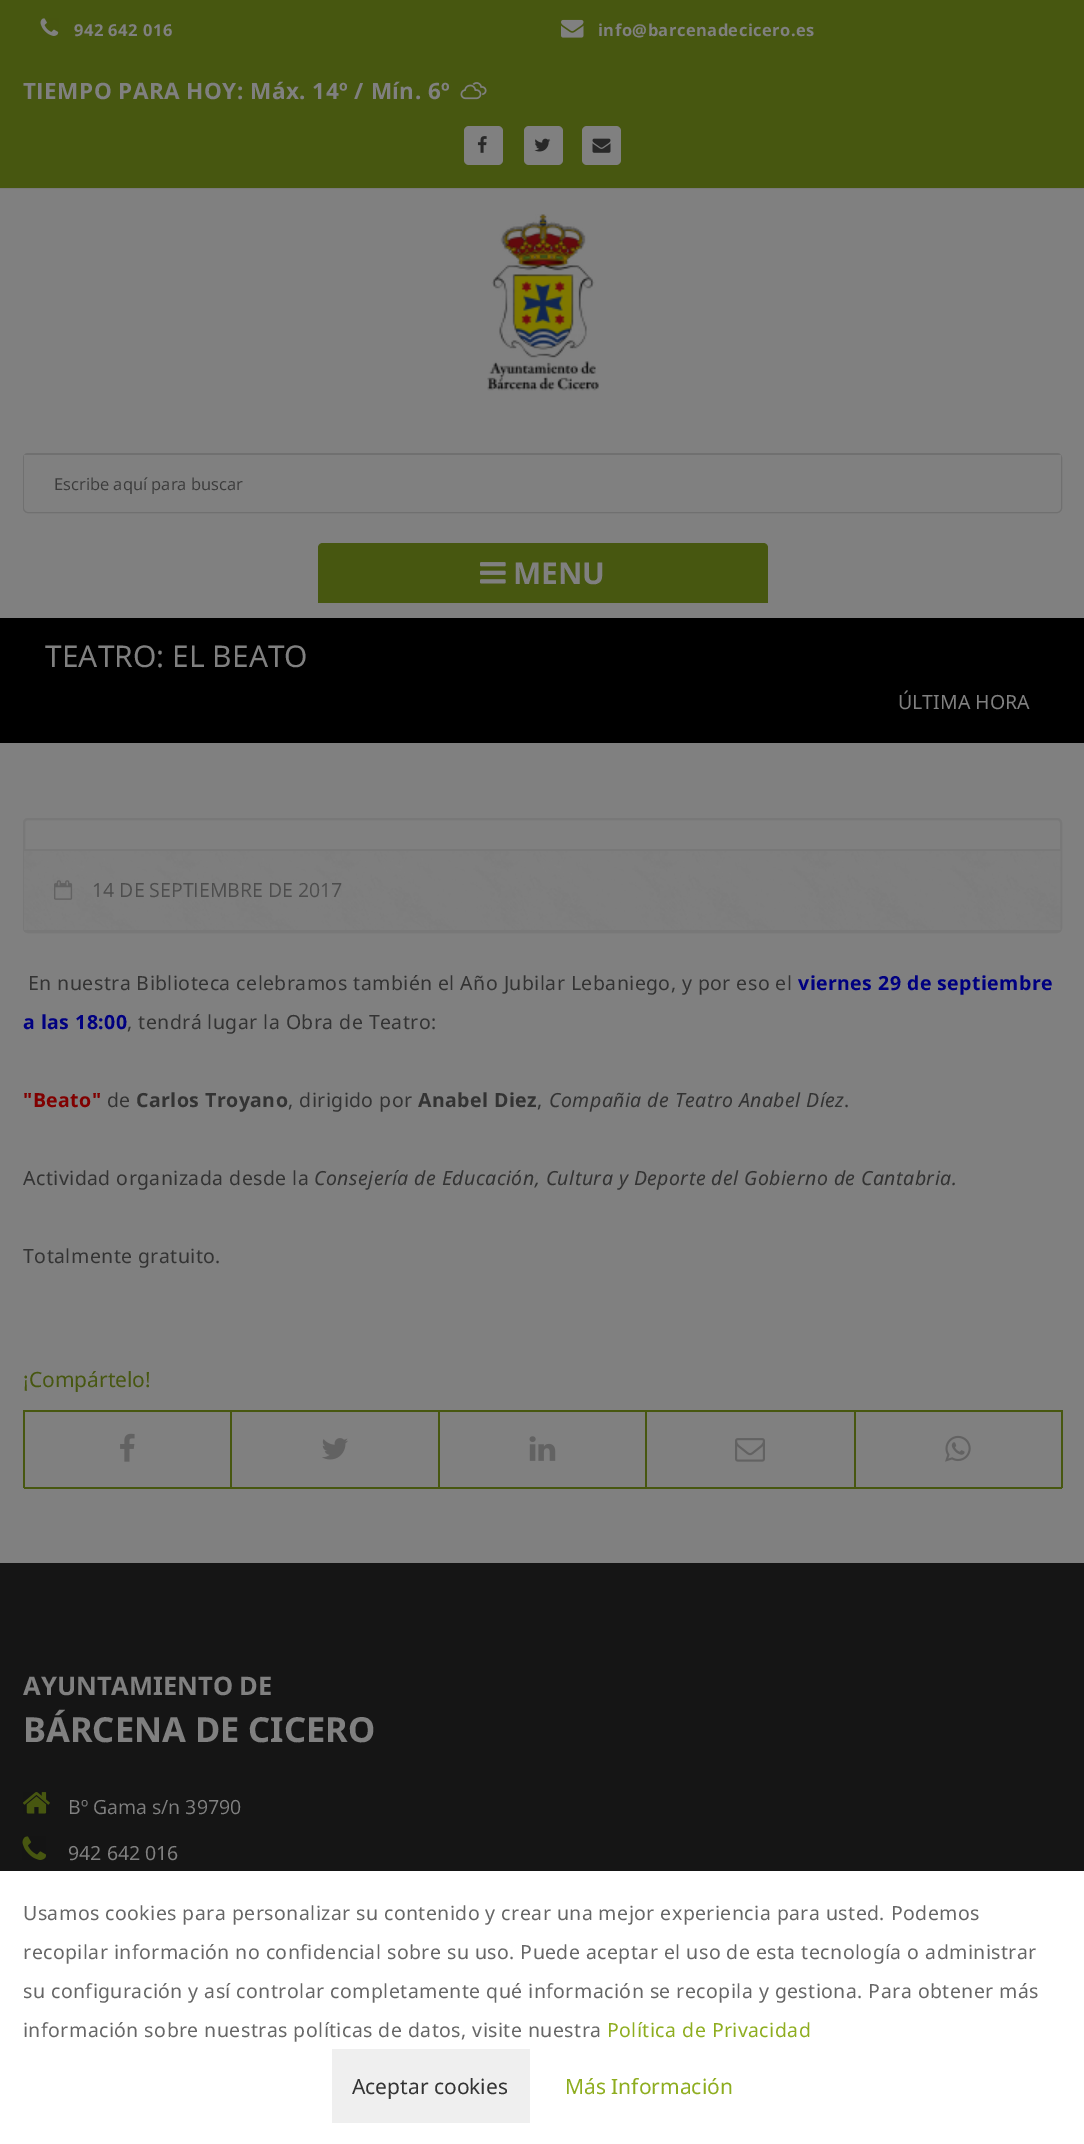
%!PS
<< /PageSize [1084 2144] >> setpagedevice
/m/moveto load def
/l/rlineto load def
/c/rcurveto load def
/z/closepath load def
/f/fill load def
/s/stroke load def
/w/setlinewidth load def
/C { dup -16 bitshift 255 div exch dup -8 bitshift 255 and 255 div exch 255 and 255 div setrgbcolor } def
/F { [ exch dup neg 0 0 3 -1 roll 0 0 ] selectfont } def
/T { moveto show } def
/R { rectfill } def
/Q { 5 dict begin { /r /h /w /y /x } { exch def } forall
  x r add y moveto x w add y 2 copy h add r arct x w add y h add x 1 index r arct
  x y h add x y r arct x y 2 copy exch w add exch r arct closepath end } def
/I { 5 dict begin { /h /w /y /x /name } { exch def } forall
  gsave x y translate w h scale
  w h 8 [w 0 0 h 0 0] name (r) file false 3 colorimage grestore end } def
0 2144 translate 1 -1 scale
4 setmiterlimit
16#808080 C
0 0 1084 2144 R
16#475710 C
0 0 1084 188 R
16#797979 C
0 188 1084 1 R
(1.rgb) 40 18 19 18 I
/OpenSans-Bold 16.5 F
16#808080 C
74 36 m .45 0 (942 642 016) ashow
(2.rgb) 561 19 23 19 I
598 36 m .45 0 (info@barcenadecicero.es) ashow
/OpenSans-Bold 22.5 F
23 99 m .45 0 (TIEMPO PARA HOY: Máx. 14º / Mín. 6º) ashow
(3.rgb) 460 82 27 18 I
464 126 39 39 5 Q f
(4.rgb) 477 136 10 17 I
524 126 39 39 5 Q f
(5.rgb) 534 138 17 14 I
582 126 39 39 5 Q f
(6.rgb) 592 138 19 15 I
(7.rgb) 487 214 112 177 I
16#707070 C
2 w
24 454 1037 58 4 Q s
16#808080 C
24 455 m 1037 0 l 0 52 l 0 3 -2 5 -5 5 c -1027 0 l -3 0 -5 -2 -5 -5 c z f
/OpenSans-Regular 16.5 F
16#3B3B3B C
(Escribe aquí para buscar) 54 490 T
16#475710 C
323 543 m 440 0 l 3 0 5 2 5 5 c 0 55 l -450 0 l 0 -55 l 0 -3 2 -5 5 -5 c z f
(8.rgb) 480 562 26 22 I
/OpenSans-Bold 30 F
16#808080 C
(MENU) 513 584 T
16#000000 C
0 618 1084 125 R
/NotoSans-Regular 30 F
16#808080 C
(TEATRO: EL BEATO) 45 667 T
/NotoSans-Regular 19.5 F
(ÚLTIMA HORA) 898 709 T
16#787878 C
24 819 1037 113 4 Q s
(9.rgb) 24 851 1037 79 I
24 849 1037 2 R
24 930 1037 2 R
(10.rgb) 54 880 19 20 I
/OpenSans-Regular 19.5 F
16#4D4D4D C
(14 DE SEPTIEMBRE DE 2017) 92 897 T
/NotoSans-Regular 19.5 F
16#333333 C
28 990 m .45 0 (En nuestra Biblioteca celebramos también el Año Jubilar Lebaniego, y por eso el) ashow
/OpenSans-Bold 19.5 F
16#000080 C
798 990 m .45 0 (viernes 29 de septiembre) ashow
23 1029 m .45 0 (a las 18:00) ashow
/NotoSans-Regular 19.5 F
16#333333 C
127 1029 m .45 0 (, tendrá lugar la Obra de Teatro:) ashow
/OpenSans-Bold 19.5 F
16#800000 C
23 1107 m .45 0 ("Beato") ashow
/NotoSans-Regular 19.5 F
16#333333 C
107 1107 m .45 0 (de) ashow
/OpenSans-Bold 19.5 F
136 1107 m .45 0 (Carlos Troyano) ashow
/NotoSans-Regular 19.5 F
288 1107 m .45 0 (, dirigido por) ashow
/OpenSans-Bold 19.5 F
418 1107 m .45 0 (Anabel Diez) ashow
/NotoSans-Regular 19.5 F
537 1107 m .45 0 (,) ashow
/NotoSans-Italic 19.5 F
549 1107 m .45 0 (Compañia de Teatro Anabel Díez) ashow
/NotoSans-Regular 19.5 F
844 1107 m .45 0 (.) ashow
23 1185 m .45 0 (Actividad organizada desde la) ashow
/NotoSans-Italic 19.5 F
314 1185 m .45 0 (Consejería de Educación, Cultura y Deporte del Gobierno de Cantabria.) ashow
/NotoSans-Regular 19.5 F
23 1263 m .45 0 (Totalmente gratuito.) ashow
/NotoSans-Regular 21 F
16#475710 C
(¡Compártelo!) 23 1387 T
23 1410 2 78 R
24 1410 207 2 R
230 1410 2 78 R
24 1487 207 2 R
(11.rgb) 120 1433 15 29 I
231 1410 624 2 R
438 1410 2 78 R
231 1487 209 2 R
(12.rgb) 322 1438 26 22 I
645 1410 2 78 R
440 1487 207 2 R
(13.rgb) 529 1436 27 25 I
854 1410 2 78 R
647 1487 208 2 R
(14.rgb) 735 1438 30 24 I
855 1410 207 2 R
1061 1410 2 78 R
855 1487 207 2 R
(15.rgb) 945 1435 26 27 I
16#151515 C
0 1563 1084 308 R
/NotoSans-Bold 25.5 F
16#808080 C
(AYUNTAMIENTO DE) 23 1695 T
/NotoSans-Bold 34.5 F
(BÁRCENA DE CICERO) 23 1742 T
(16.rgb) 23 1792 27 22 I
/OpenSans-Regular 19.5 F
(Bº Gama s/n 39790) 68 1814 T
(17.rgb) 22 1836 24 24 I
/NotoSans-Regular 19.5 F
(942 642 016) 68 1860 T
16#FFFFFF C
0 1871 1084 273 R
16#666666 C
23 1920 m .45 0 (Usamos cookies para personalizar su contenido y crear una mejor experiencia para usted. Podemos) ashow
23 1959 m .45 0 (recopilar información no confidencial sobre su uso. Puede aceptar el uso de esta tecnología o administrar) ashow
23 1998 m .45 0 (su configuración y así controlar completamente qué información se recopila y gestiona. Para obtener más) ashow
23 2037 m .45 0 (información sobre nuestras políticas de datos, visite nuestra) ashow
16#8EAD1F C
607 2037 m .45 0 (Política de Privacidad) ashow
16#EFEFEF C
332 2049 198 74 R
/NotoSans-Regular 21 F
16#333333 C
(Aceptar cookies) 352 2094 T
16#8EAD1F C
(Más Información) 565 2094 T
showpage
